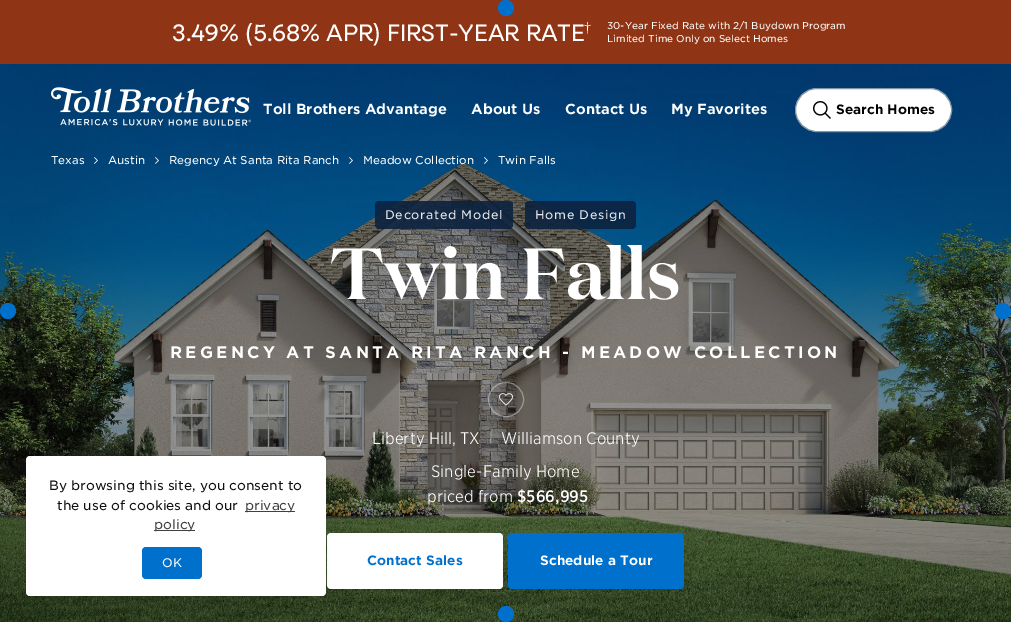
%!PS
<< /PageSize [1011 622] /PageUsesTransparency true >> setpagedevice
/m/moveto load def
/f/fill load def
/s/stroke load def
/q/gsave load def
/Q_/grestore load def
/C { dup -16 bitshift 255 div exch dup -8 bitshift 255 and 255 div exch 255 and 255 div setrgbcolor } def
/F { [ exch dup neg 0 0 3 -1 roll 0 0 ] selectfont } def
/T { moveto show } def
/R { rectfill } def
/A { dup .setfillconstantalpha .setstrokeconstantalpha } def
/O { newpath 0 360 arc closepath } def
/Q { 5 dict begin { /r /h /w /y /x } { exch def } forall
  x r add y moveto x w add y 2 copy h add r arct x w add y h add x 1 index r arct
  x y h add x y r arct x y 2 copy exch w add exch r arct closepath end } def
/S { 12 dict begin { /a /b /q /h /w /y /x } { exch def } forall gsave /was 0 def
  9 -2 -9 { dup b mul 4 div /e exch def 1 sub .425 mul 2.718 exch exp 1 add a .99 .min exch div /now exch def
    1 1 now sub 1 was sub div sub A /was now def
    w h .min e 2 mul add 0 gt { x e sub y e sub w e 2 mul add h e 2 mul add
      q e add b .6 mul add w h .min 2 div e add .min 0 .max Q fill } if } for grestore end } def
/I { 5 dict begin { /h /w /y /x /name } { exch def } forall
  gsave x y translate w h scale
  w h 8 [w 0 0 h 0 0] name (r) file false 3 colorimage grestore end } def
0 .pushpdf14devicefilter
0 622 translate 1 -1 scale
4 setmiterlimit
16#8F3515 C
0 0 1011 622 R
/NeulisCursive-Regular 24 F
16#FFFFFF C
(3.49% \(5.68% APR\) FIRST-YEAR RATE) 172 41 T
/LiberationSerif-Regular 14 F
(†) 584 32 T
/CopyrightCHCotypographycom-Light 9.6 F
(30-Year Fixed Rate with 2/1 Buydown Program) 607 29 T
(Limited Time Only on Select Homes) 607 42 T
(7.rgb) 0 64 1011 558 I
(1.rgb) 51 87 200 39 I
/CopyrightCHCotypographycom-Regular 14 F
(Toll Brothers Advantage) 263 114 T
(About Us) 471 114 T
(Contact Us) 565 114 T
(My Favorites) 671 114 T
795.5 88.5 156 43 21.5 Q q f Q_
16#8195A2 C
s
(2.rgb) 813 101 18 18 I
/CopyrightCHCotypographycom-Regular 13 F
16#000000 C
(Search Homes) 836 114 T
/CopyrightCHCotypographycom-Light 11 F
16#FFFFFF C
(Texas) 51 164 T
(3.rgb) 94 157 4 7 I
(Austin) 108 164 T
(4.rgb) 155 157 4 7 I
(Regency At Santa Rita Ranch) 169 164 T
(5.rgb) 349 157 4 7 I
(Meadow Collection) 363 164 T
(6.rgb) 484 157 4 7 I
(Twin Falls) 498 164 T
16#0070CD C
8 311 8 O f
506 8 8 O f
506 614 8 O f
1003 311 8 O f
0.9 A
16#0C223F C
375 201 138 28 4 Q f
/CopyrightCHCotypographycom-Light 12 F
1 A
16#E7E9EC C
385 219 m .6 0 (Decorated Model) ashow
0.9 A
16#0C223F C
525 201 111 28 4 Q f
1 A
16#E7E9EC C
535 219 m .6 0 (Home Design) ashow
/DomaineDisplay-SemiBold 72 F
16#FFFFFF C
330 299 m .25 0 (Twin Falls) ashow
/CopyrightCHCotypographycom-Regular 16 F
170 358 m 3.2 0 (REGENCY AT SANTA RITA RANCH - MEADOW COLLECTION) ashow
/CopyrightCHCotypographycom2-Light 16 F
(Liberty Hill, TX) 372 444 T
/CopyrightCHCotypographycom2-Light 13 F
16#C8C8C7 C
(|) 489 442 T
/CopyrightCHCotypographycom2-Light 16 F
16#FFFFFF C
(Williamson County) 501 444 T
0.36 A
488.5 382.5 35 34 17 Q s
1 A
(8.rgb) 499 393 14 13 I
(Single-Family Home) 431 477 T
(priced from) 427 502 T
/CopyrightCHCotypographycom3-Light 16 F
($566,995) 517 502 T
327 533 176 56 4 Q f
/CopyrightCHCotypographycom-Regular 13 F
16#0070CD C
(Contact Sales) 367 565 T
508 533 176 56 4 Q f
16#FFFFFF C
(Schedule a Tour) 540 565 T
16#000000 C
26 457 300 140 4 1.5 .12 S
16#FFFFFF C
26 456 300 140 4 Q f
/CopyrightCHCotypographycom-Light 13 F
16#0F0F0F C
(By browsing this site, you consent to) 49 490 T
(the use of cookies and our) 57 510 T
16#404040 C
245 511 50 1 R
(privacy) 245 510 T
154 530 41 1 R
(policy) 154 529 T
16#0070CD C
142 547 60 32 4 Q f
/CopyrightCHCotypographycom-Light 12 F
16#FFFFFF C
(OK) 162 567 T
.poppdf14devicefilter showpage
